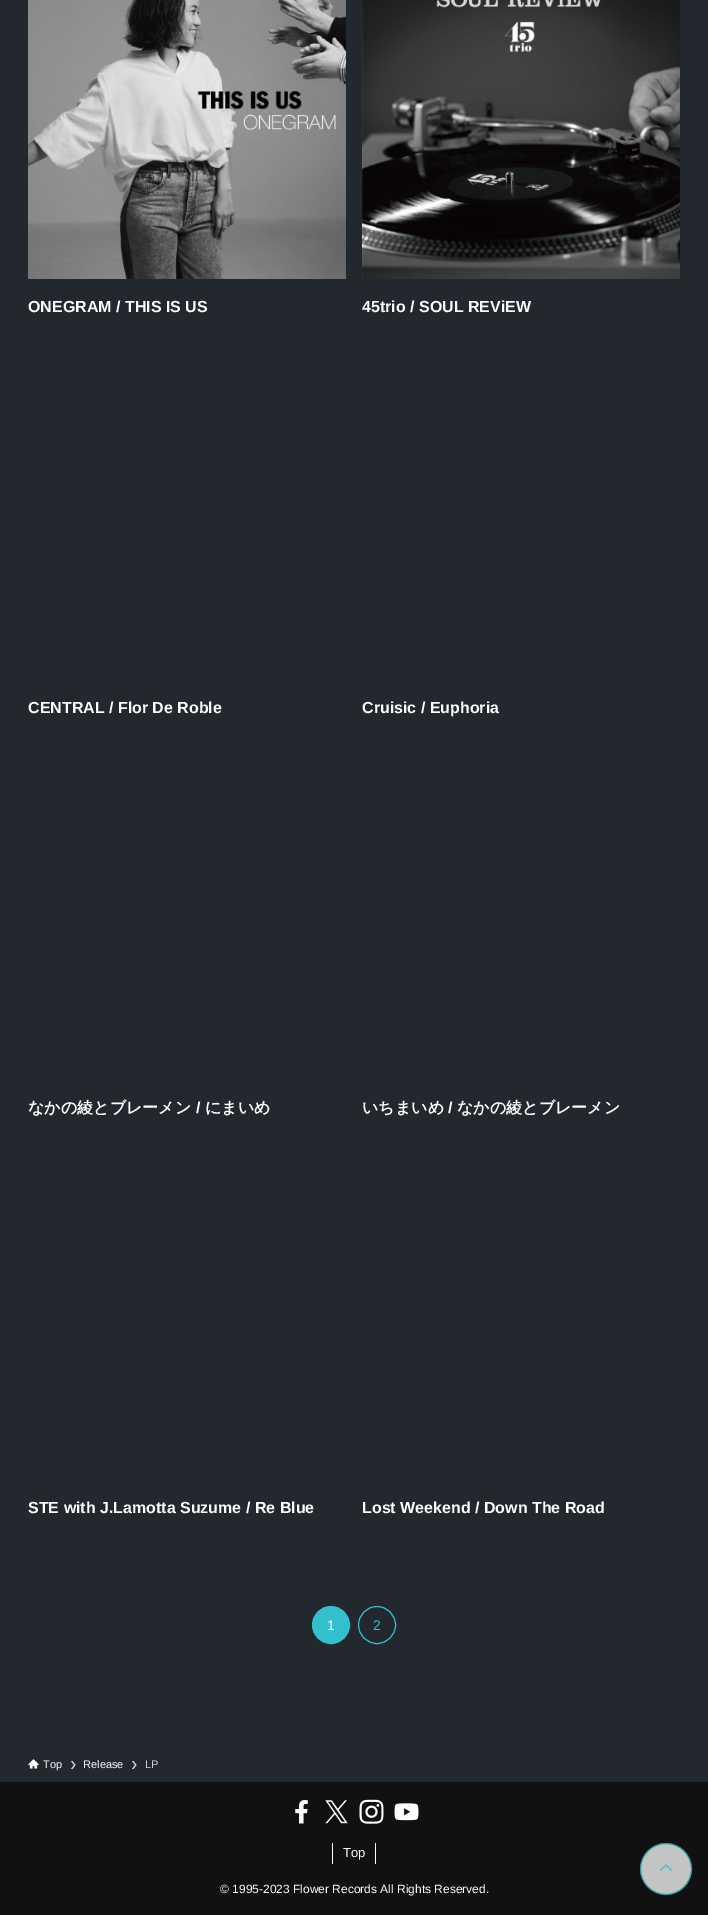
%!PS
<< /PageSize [708 1915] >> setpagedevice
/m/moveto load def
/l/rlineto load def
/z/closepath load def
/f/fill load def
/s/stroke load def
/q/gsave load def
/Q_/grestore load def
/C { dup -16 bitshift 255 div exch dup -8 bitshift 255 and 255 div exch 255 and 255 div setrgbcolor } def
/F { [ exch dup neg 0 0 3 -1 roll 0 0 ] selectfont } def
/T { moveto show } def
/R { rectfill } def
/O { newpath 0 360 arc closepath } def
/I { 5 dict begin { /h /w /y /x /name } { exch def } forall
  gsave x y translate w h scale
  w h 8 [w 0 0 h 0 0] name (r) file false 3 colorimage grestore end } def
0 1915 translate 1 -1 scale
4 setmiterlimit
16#23282F C
0 0 708 1915 R
(1.rgb) 28 0 318 279 I
/LiberationSans-Bold 16 F
16#FDFDFD C
(ONEGRAM / THIS IS US) 28 312 T
(2.rgb) 362 0 318 279 I
(45trio / SOUL REViEW) 362 312 T
(CENTRAL / Flor De Roble) 28 713 T
(Cruisic / Euphoria) 362 713 T
/WenQuanYiZenHei-Bold 16 F
(なかの綾とブレーメン) 28 1113 T
/LiberationSans-Bold 16 F
(/) 196 1113 T
/WenQuanYiZenHei-Bold 16 F
(にまいめ) 205 1113 T
(いちまいめ) 362 1113 T
/LiberationSans-Bold 16 F
(/) 448 1113 T
/WenQuanYiZenHei-Bold 16 F
(なかの綾とブレーメン) 457 1113 T
/LiberationSans-Bold 16 F
(STE with J.Lamotta Suzume / Re Blue) 28 1513 T
(Lost Weekend / Down The Road) 362 1513 T
16#33BFCC C
331 1625 18.5 O q f Q_
s
/LiberationSans-Regular 14 F
16#FDFDFD C
(1) 327 1630 T
16#33BFCC C
377 1625 18.5 O s
(2) 373 1630 T
(3.rgb) 28 1759 11 10 I
/LiberationSans-Regular 11 F
16#FDFDFD C
(Top) 43 1768 T
16#D1D2D4 C
72.5 1761 m -1.5 0 l 3 4 l -3 4 l 1.5 0 l 3 -4 l z f
16#FDFDFD C
(Release) 83 1768 T
16#D1D2D4 C
133.5 1761 m -1.5 0 l 3 4 l -3 4 l 1.5 0 l 3 -4 l z f
(LP) 145 1768 T
16#111111 C
0 1782 708 133 R
(4.rgb) 295 1800 13 24 I
(5.rgb) 325 1800 23 24 I
(6.rgb) 359 1799 25 25 I
(7.rgb) 394 1803 25 18 I
16#FDFDFD C
375 1843 1 21 R
332 1843 1 21 R
/LiberationSans-Regular 13 F
(Top) 343 1857 T
/LiberationSans-Regular 12 F
(© 1995-2023 Flower Records All Rights Reserved.) 220 1893 T
16#C4C4C4 C
666 1869 25.5 O q f Q_
16#2B949D C
s
(8.rgb) 659 1864 14 7 I
showpage
